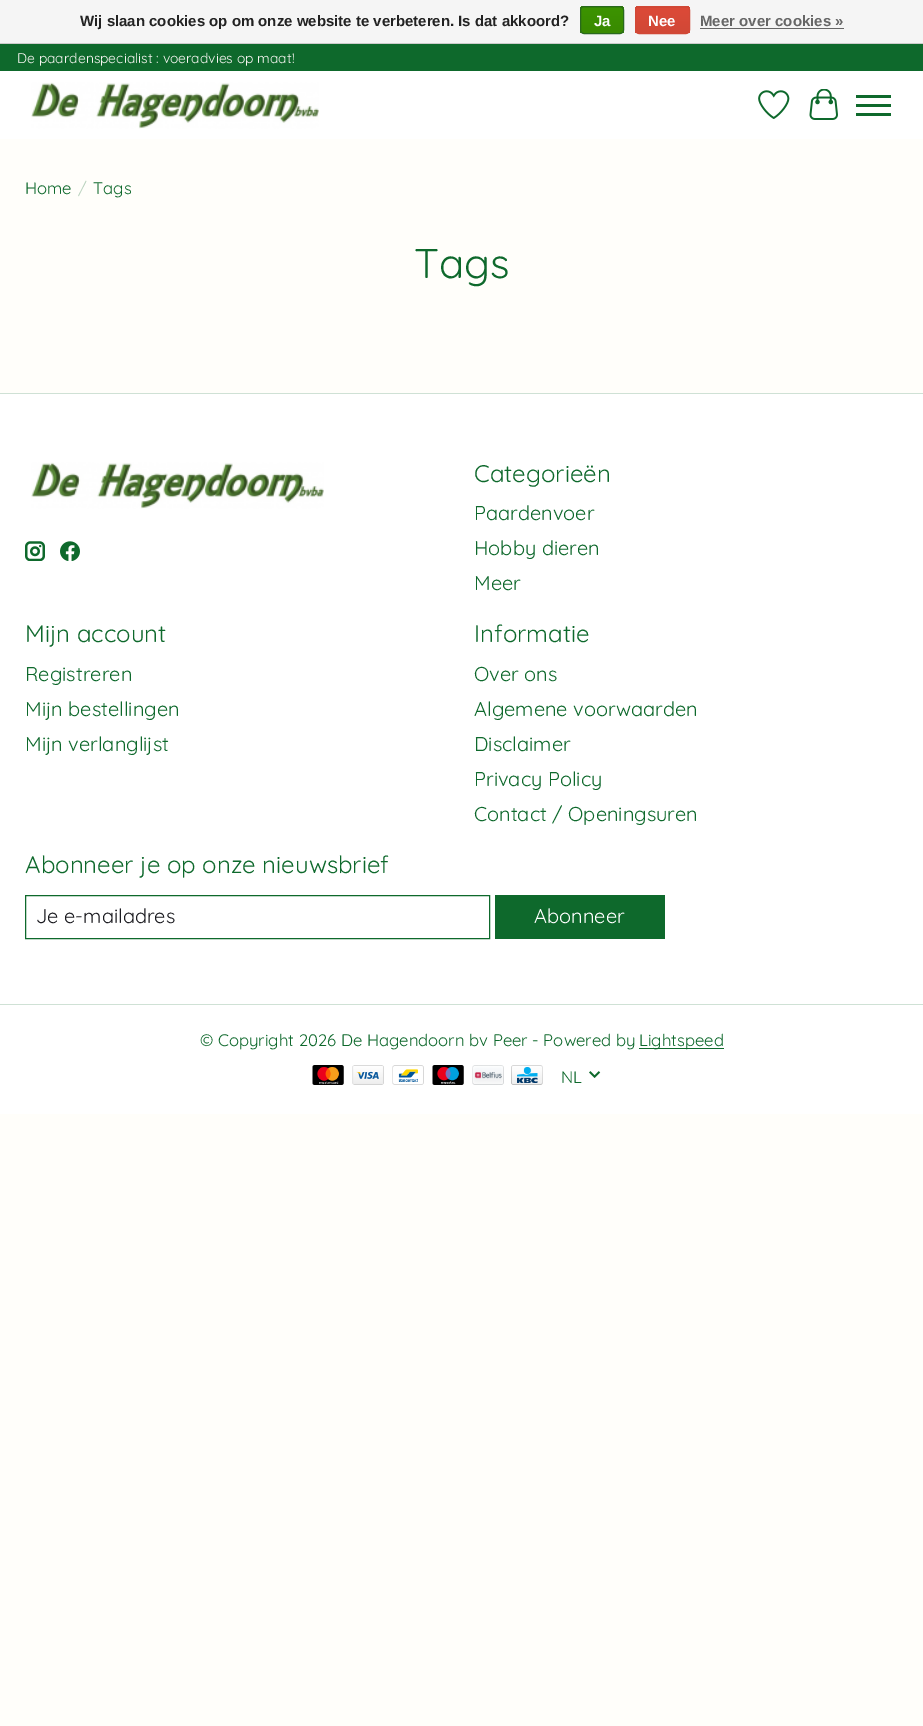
%!PS
<< /PageSize [923 1726] >> setpagedevice
/m/moveto load def
/l/rlineto load def
/z/closepath load def
/s/stroke load def
/q/gsave load def
/Q_/grestore load def
/C { dup -16 bitshift 255 div exch dup -8 bitshift 255 and 255 div exch 255 and 255 div setrgbcolor } def
/F { [ exch dup neg 0 0 3 -1 roll 0 0 ] selectfont } def
/T { moveto show } def
/R { rectfill } def
/Q { 5 dict begin { /r /h /w /y /x } { exch def } forall
  x r add y moveto x w add y 2 copy h add r arct x w add y h add x 1 index r arct
  x y h add x y r arct x y 2 copy exch w add exch r arct closepath end } def
/I { 5 dict begin { /h /w /y /x /name } { exch def } forall
  gsave x y translate w h scale
  w h 8 [w 0 0 h 0 0] name (r) file false 3 colorimage grestore end } def
0 1726 translate 1 -1 scale
4 setmiterlimit
16#FFFEFA C
0 0 923 1726 R
16#F5F5F5 C
0 0 923 43 R
16#CCCCCC C
0 43 923 1 R
/LiberationSans-Bold 15 F
16#222222 C
(Wij slaan cookies op om onze website te verbeteren. Is dat akkoord?) 80 26 T
q
580 6 44 28 4 Q clip newpath
q 580 6 m 44 0 l 0 2 l -44 0 l z clip newpath
<< /ShadingType 2 /ColorSpace /DeviceRGB /Coords [602 -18 602 7.5] /Extend [true true] /Function << /FunctionType 2 /Domain [0 1] /C0 [.235 .576 0] /C1 [.224 .541 0] /N 1 >> >> shfill Q_
q 580 8 m 44 0 l 0 25 l -44 0 l z clip newpath
<< /ShadingType 2 /ColorSpace /DeviceRGB /Coords [602 7.5 602 33] /Extend [true true] /Function << /FunctionType 2 /Domain [0 1] /C0 [.235 .576 0] /C1 [.224 .541 0] /N 1 >> >> shfill Q_
Q_
16#29691D C
580.5 6.5 43 27 3.5 Q s
16#FFFFFF C
(Ja) 594 26 T
q
635 6 55 28 4 Q clip newpath
q 635 6 m 55 0 l 0 2 l -55 0 l z clip newpath
<< /ShadingType 2 /ColorSpace /DeviceRGB /Coords [663 -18 663 7.5] /Extend [true true] /Function << /FunctionType 2 /Domain [0 1] /C0 [.863 .29 .22] /C1 [.82 .282 .212] /N 1 >> >> shfill Q_
q 635 8 m 55 0 l 0 25 l -55 0 l z clip newpath
<< /ShadingType 2 /ColorSpace /DeviceRGB /Coords [663 7.5 663 33] /Extend [true true] /Function << /FunctionType 2 /Domain [0 1] /C0 [.863 .29 .22] /C1 [.82 .282 .212] /N 1 >> >> shfill Q_
Q_
16#D14836 C
635.5 6.5 54 27 3.5 Q s
16#FFFFFF C
(Nee) 648 26 T
16#666666 C
(Meer over cookies ») 700 26 T
700 28 144 1 R
16#FFFFFF C
0 71 923 68 R
16#0E692C C
0 44 923 27 R
/Quicksand-Regular 13.9 F
16#FAF7F4 C
(De paardenspecialist : voeradvies op maat!) 17 63 T
(1.rgb) 31 82 288 47 I
(2.rgb) 758 90 32 29 I
(3.rgb) 809 89 29 31 I
16#0E692C C
856 104 35 3 R
856 95 35 3 R
856 113 35 3 R
/Quicksand-Regular 16.7 F
(Home) 25 194 T
16#B7D1BC C
(/) 78 194 T
16#0E692C C
(Tags) 93 194 T
/Quicksand-Regular 41.5 F
(Tags) 414 278 T
16#FFFFFF C
0 394 923 720 R
16#CFE1D5 C
0 393 923 1 R
(4.rgb) 31 462 293 47 I
(5.rgb) 25 541 20 20 I
(6.rgb) 60 541 20 20 I
/Quicksand-Regular 24 F
16#0E692C C
(Categorieën) 474 482 T
/Quicksand-Regular 20 F
(Paardenvoer) 474 520 T
(Hobby dieren) 474 555 T
(Meer) 474 590 T
/Quicksand-Regular 24 F
(Mijn account) 25 642 T
/Quicksand-Regular 20 F
(Registreren) 25 681 T
(Mijn bestellingen) 25 716 T
(Mijn verlanglijst) 25 751 T
/Quicksand-Regular 24 F
(Informatie) 474 642 T
/Quicksand-Regular 20 F
(Over ons) 474 681 T
(Algemene voorwaarden) 474 716 T
(Disclaimer) 474 751 T
(Privacy Policy) 474 786 T
(Contact / Openingsuren) 474 821 T
/Quicksand-Regular 24 F
(Abonneer je op onze nieuwsbrief) 25 873 T
25.5 895.5 464 43 rectstroke
/Quicksand-Regular 20 F
16#1C1C21 C
(Je e-mailadres) 36 923 T
16#0E692C C
495 895 170 44 R
16#FFFFFF C
(Abonneer) 534 923 T
16#CFE1D5 C
0 1004 923 1 R
/Quicksand-Regular 16.7 F
16#0E692C C
(© Copyright 2026 De Hagendoorn bv Peer - Powered by) 200 1046 T
639 1048 85 1 R
(Lightspeed) 639 1046 T
(7.rgb) 312 1065 32 20 I
(8.rgb) 352 1065 32 20 I
(9.rgb) 392 1065 32 20 I
(10.rgb) 432 1065 32 20 I
(11.rgb) 472 1065 32 20 I
(12.rgb) 511 1065 32 20 I
(NL) 561 1083 T
(13.rgb) 589 1071 12 7 I
showpage
